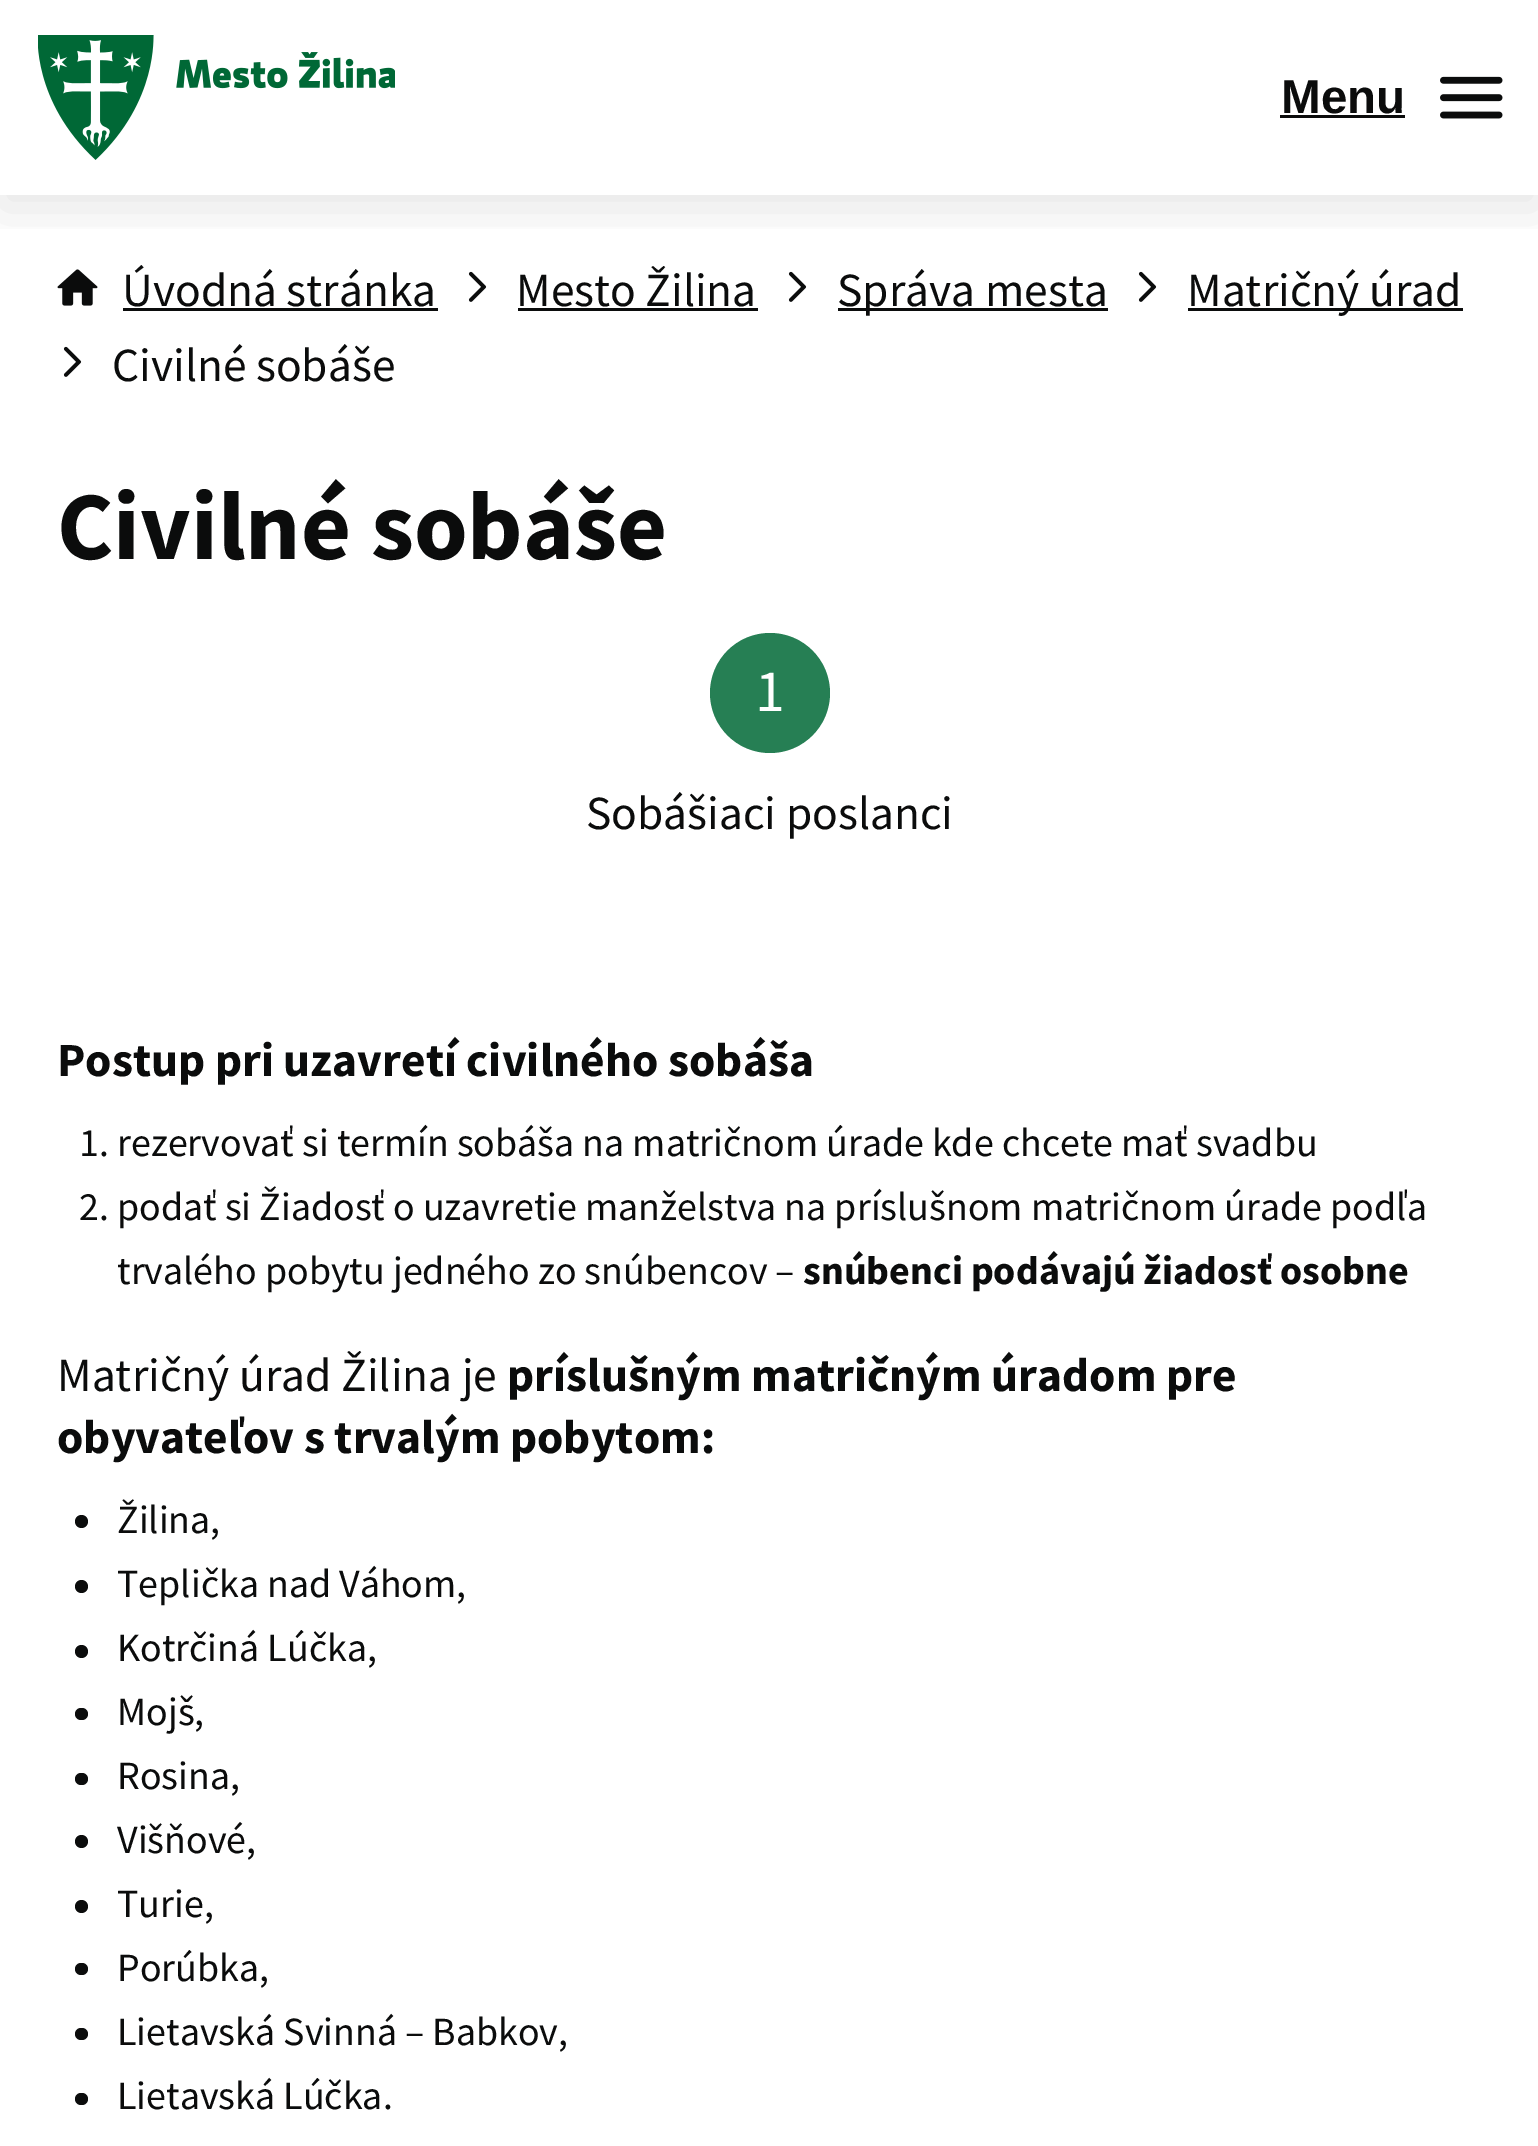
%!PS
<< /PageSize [1538 2146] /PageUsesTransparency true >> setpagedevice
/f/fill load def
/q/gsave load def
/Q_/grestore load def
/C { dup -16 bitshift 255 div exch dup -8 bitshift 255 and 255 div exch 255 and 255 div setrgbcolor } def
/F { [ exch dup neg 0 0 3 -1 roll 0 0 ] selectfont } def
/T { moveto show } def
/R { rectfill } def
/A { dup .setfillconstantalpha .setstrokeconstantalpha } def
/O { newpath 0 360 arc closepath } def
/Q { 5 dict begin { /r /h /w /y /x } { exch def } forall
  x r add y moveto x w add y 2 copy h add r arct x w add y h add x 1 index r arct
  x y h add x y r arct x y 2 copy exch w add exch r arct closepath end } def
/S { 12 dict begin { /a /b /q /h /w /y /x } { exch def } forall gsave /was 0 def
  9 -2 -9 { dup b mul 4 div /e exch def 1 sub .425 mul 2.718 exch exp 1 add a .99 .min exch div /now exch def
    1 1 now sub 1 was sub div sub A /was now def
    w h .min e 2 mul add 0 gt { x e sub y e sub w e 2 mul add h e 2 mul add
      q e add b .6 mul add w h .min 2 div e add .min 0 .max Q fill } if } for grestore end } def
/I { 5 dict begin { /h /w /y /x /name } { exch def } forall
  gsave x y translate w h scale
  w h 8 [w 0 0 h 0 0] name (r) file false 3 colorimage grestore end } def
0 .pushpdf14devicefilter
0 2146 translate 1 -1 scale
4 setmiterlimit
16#FFFFFF C
0 0 1538 2146 R
(3.rgb) 57 269 41 37 I
(4.rgb) 468 271 19 31 I
(4.rgb) 788 271 19 31 I
(4.rgb) 1138 271 19 31 I
q
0 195 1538 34 rectclip
16#000000 C
0 13 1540 195 0 25 .1 S
Q_
(1.rgb) 38 35 357 125 I
/LiberationSans-Bold 47.5 F
16#0B0C0C C
(Menu) 1281 113 T
1280 115 125 3 R
(2.rgb) 1440 76 63 43 I
/SourceSansPro-Regular 47.5 F
(Úvodná stránka) 122 306 T
123 308 315 3 R
(Mesto Žilina) 516 306 T
518 308 240 3 R
838 308 270 3 R
(Správa mesta) 837 306 T
1188 308 275 3 R
(Matričný úrad) 1187 306 T
(4.rgb) 63 346 19 31 I
(Civilné sobáše) 112 381 T
/SourceSansPro-Bold 97 F
(Civilné sobáše) 57 559 T
16#267F54 C
770 693 60 O f
/SourceSansPro-Regular 60 F
16#FFFFFF C
(1) 755 711 T
/SourceSansPro-Regular 47.5 F
16#0B0C0C C
(Sobášiaci poslanci) 586 829 T
/SourceSansPro-Bold 47.5 F
(Postup pri uzavretí civilného sobáša) 57 1076 T
/SourceSansPro-Regular 40 F
(1. rezervovať si termín sobáša na matričnom úrade kde chcete mať svadbu) 79 1156 T
(2. podať si Žiadosť o uzavretie manželstva na príslušnom matričnom úrade podľa) 79 1220 T
(trvalého pobytu jedného zo snúbencov –) 117 1284 T
/SourceSansPro-Bold 40 F
(snúbenci podávajú žiadosť osobne) 803 1284 T
/SourceSansPro-Regular 47.5 F
(Matričný úrad Žilina je) 57 1391 T
/SourceSansPro-Bold 47.5 F
(príslušným matričným úradom pre) 507 1391 T
(obyvateľov s trvalým pobytom:) 57 1453 T
81.5 1521.5 6.5 O f
/SourceSansPro-Regular 40 F
(Žilina,) 117 1533 T
81.5 1586.5 6.5 O f
(Teplička nad Váhom,) 117 1597 T
81.5 1651.5 6.5 O f
(Kotrčiná Lúčka,) 117 1661 T
75 1708 13 12 6 Q f
(Mojš,) 117 1725 T
75 1773 13 12 6 Q f
(Rosina,) 117 1789 T
81.5 1841.5 6.5 O f
(Višňové,) 117 1853 T
81.5 1906.5 6.5 O f
(Turie,) 117 1917 T
75 1963 13 12 6 Q f
(Porúbka,) 117 1981 T
75 2028 13 12 6 Q f
(Lietavská Svinná – Babkov,) 117 2045 T
75 2093 13 12 6 Q f
(Lietavská Lúčka.) 117 2109 T
.poppdf14devicefilter showpage
